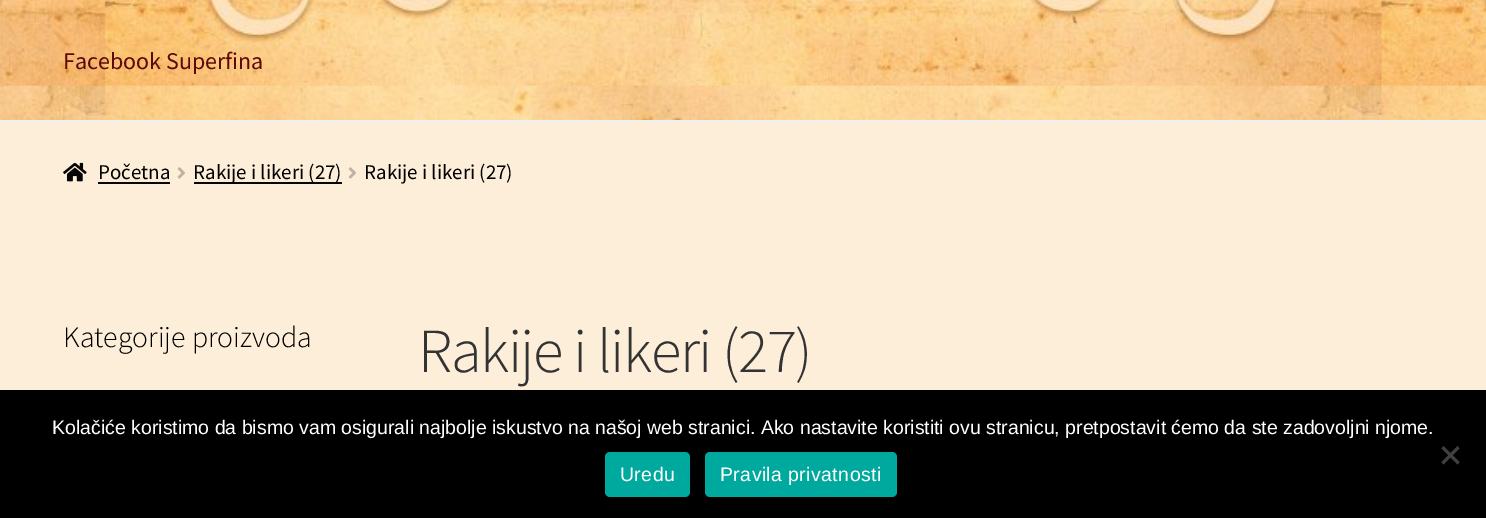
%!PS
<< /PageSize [1486 518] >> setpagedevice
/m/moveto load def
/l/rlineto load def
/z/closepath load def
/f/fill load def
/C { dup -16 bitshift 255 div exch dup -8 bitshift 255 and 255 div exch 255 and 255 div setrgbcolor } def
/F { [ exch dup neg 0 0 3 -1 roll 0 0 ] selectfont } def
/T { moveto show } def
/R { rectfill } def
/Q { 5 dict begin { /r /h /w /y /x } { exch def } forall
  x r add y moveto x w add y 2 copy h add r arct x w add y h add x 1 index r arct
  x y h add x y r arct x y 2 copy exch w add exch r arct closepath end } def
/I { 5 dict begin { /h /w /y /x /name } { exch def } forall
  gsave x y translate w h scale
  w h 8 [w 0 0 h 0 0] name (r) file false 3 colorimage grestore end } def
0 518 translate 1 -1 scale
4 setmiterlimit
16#FCEED9 C
0 0 1486 518 R
(1.rgb) 0 0 1486 120 I
16#F0F0F0 C
0 120 1486 2 R
/SourceSansPro-Regular 24 F
16#5B0909 C
(Facebook Superfina) 63 69 T
(2.rgb) 63 162 24 20 I
/SourceSansPro-Regular 21 F
16#000000 C
(Početna) 98 179 T
16#050505 C
98 182 72 2 R
(3.rgb) 177 167 8 12 I
194 182 148 2 R
16#000000 C
(Rakije i likeri \(27\)) 193 179 T
(3.rgb) 348 167 8 12 I
(Rakije i likeri \(27\)) 364 179 T
/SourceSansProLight-Light 29.75 F
(Kategorije proizvoda) 63 347 T
/SourceSansProLight-Light 62.75 F
16#333333 C
418 372 m -1.5 0 (Rakije i likeri \(27\)) ashow
16#000000 C
0 390 1486 128 R
/LiberationSans-Regular 19.5 F
16#FFFFFF C
(Kolačiće koristimo da bismo vam osigurali najbolje iskustvo na našoj web stranici. Ako nastavite koristiti ovu stranicu, pretpostavit ćemo da ste zadovoljni njome.) 52 434 T
16#404040 C
1457.5 446 m 2 2.5 l -16 16 l -2 -2.5 l z f
1441.5 448.5 m 2 -2.5 l 16 16 l -2 2.5 l z f
16#00A99D C
605 452 85 45 5 Q f
16#FFFFFF C
620 481 m .4 0 (Uredu) ashow
16#00A99D C
705 452 192 45 5 Q f
16#FFFFFF C
720 481 m .4 0 (Pravila privatnosti) ashow
showpage
